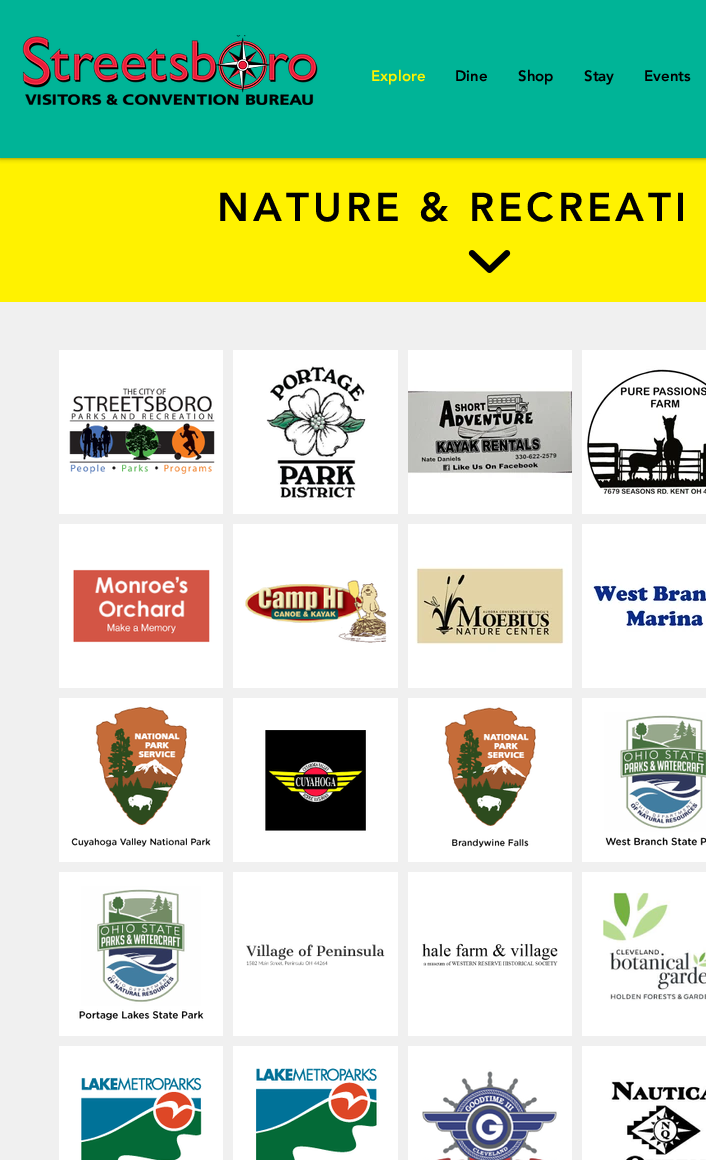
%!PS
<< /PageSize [706 1160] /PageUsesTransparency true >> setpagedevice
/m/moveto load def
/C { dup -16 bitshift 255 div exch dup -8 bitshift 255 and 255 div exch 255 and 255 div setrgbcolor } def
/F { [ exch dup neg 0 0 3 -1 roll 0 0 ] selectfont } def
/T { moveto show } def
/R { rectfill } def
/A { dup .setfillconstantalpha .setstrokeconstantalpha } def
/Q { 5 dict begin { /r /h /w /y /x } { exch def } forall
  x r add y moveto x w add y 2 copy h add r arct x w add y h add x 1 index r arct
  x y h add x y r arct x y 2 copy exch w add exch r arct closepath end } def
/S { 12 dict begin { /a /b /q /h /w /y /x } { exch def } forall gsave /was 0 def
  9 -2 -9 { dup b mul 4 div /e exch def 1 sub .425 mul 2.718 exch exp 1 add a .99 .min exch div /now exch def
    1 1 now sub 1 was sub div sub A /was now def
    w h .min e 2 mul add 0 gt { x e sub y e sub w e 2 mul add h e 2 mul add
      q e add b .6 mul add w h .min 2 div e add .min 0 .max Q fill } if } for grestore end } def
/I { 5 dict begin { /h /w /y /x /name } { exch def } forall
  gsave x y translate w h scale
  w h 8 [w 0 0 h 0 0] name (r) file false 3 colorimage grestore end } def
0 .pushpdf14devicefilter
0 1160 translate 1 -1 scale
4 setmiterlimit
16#F0F0F0 C
0 0 706 1160 R
16#FFF200 C
0 158 706 144 R
16#000000 C
0 0 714 158 0 2.5 .5 S
16#00B497 C
0 0 706 158 R
(1.rgb) 22 35 296 70 I
/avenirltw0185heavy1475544-Black 15 F
16#FFF200 C
(Explore) 371 81 T
16#000000 C
(Dine) 455 81 T
(Shop) 518 81 T
(Stay) 584 81 T
(Events) 644 81 T
/avenirltw0185heavy1475544-Black 40 F
217 221 m 4 0 (NATURE & RECREATI) ashow
(2.rgb) 468 250 43 23 I
(3.rgb) 59 350 164 164 I
(4.rgb) 233 350 165 164 I
(5.rgb) 408 350 164 164 I
(6.rgb) 582 350 124 164 I
(7.rgb) 59 524 164 164 I
(8.rgb) 233 524 165 164 I
(9.rgb) 408 524 164 164 I
(10.rgb) 582 524 124 164 I
(11.rgb) 59 698 164 164 I
(12.rgb) 233 698 165 164 I
(13.rgb) 408 698 164 164 I
(14.rgb) 582 698 124 164 I
(15.rgb) 59 872 164 164 I
(16.rgb) 233 872 165 164 I
(17.rgb) 408 872 164 164 I
(18.rgb) 582 872 124 164 I
(19.rgb) 59 1046 164 114 I
(20.rgb) 233 1046 165 114 I
(21.rgb) 408 1046 164 114 I
(22.rgb) 582 1046 124 114 I
.poppdf14devicefilter showpage
